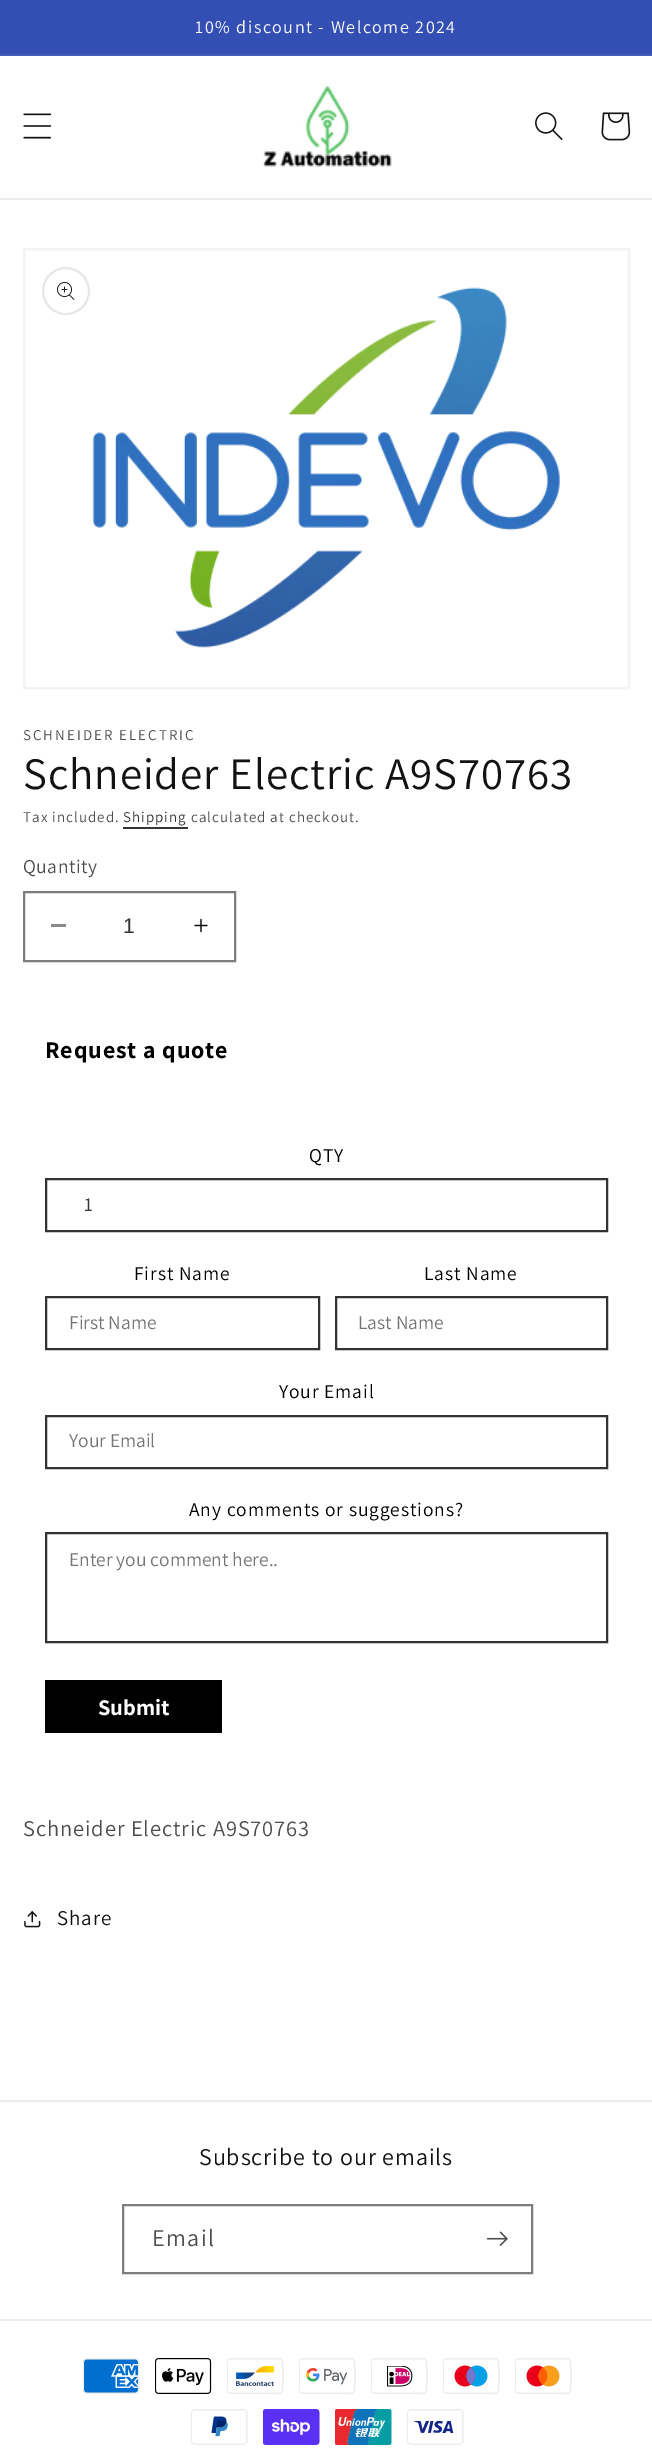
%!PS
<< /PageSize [652 2461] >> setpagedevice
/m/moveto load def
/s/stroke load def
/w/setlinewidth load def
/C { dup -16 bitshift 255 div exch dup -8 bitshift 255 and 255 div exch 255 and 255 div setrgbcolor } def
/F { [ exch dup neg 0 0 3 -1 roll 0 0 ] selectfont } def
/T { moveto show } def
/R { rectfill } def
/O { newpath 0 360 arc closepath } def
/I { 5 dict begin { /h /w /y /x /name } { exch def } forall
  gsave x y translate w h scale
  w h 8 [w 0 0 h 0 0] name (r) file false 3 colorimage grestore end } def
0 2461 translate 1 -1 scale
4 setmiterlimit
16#FFFFFF C
0 0 652 2461 R
16#334FB4 C
0 0 652 54 R
16#435DBA C
0 54 652 2 R
/Assistant-Regular 18 F
16#FFFFFF C
195 33 m 1.5 0 (10% discount - Welcome 2024) ashow
16#ECECEC C
0 198 652 2 R
(1.rgb) 23 113 29 26 I
(2.rgb) 263 85 129 82 I
(3.rgb) 535 112 28 28 I
(4.rgb) 601 112 30 29 I
16#F3F3F3 C
2 w
24 249 605 439 rectstroke
16#E7E7E7 C
66 291 23 O s
(5.rgb) 57 282 18 18 I
(6.rgb) 92 287 468 361 I
/Assistant-Regular 15 F
16#4D4D4D C
23 740 m 2 0 (SCHNEIDER ELECTRIC) ashow
/Assistant-Regular 45 F
16#121212 C
23 789 m .9 0 (Schneider Electric A9S70763) ashow
/Assistant-Regular 15 F
16#4D4D4D C
23 822 m 1.05 0 (Tax included.) ashow
16#363636 C
123 822 m 1.05 0 (Shipping) ashow
123 827 65 2 R
16#4D4D4D C
191 822 m 1.05 0 (calculated at checkout.) ashow
/Assistant-Regular 19.5 F
23 873 m .5 0 (Quantity) ashow
16#898989 C
51 924 15 3 R
(7.rgb) 194 918 14 15 I
16#7D7D7D C
24 892 211 69 rectstroke
/LiberationSans-Regular 21 F
16#363636 C
(1) 123 933 T
/Assistant-Bold 24 F
16#000000 C
45 1058 m .9 0 (Request a quote) ashow
/Assistant-Regular 19.5 F
309 1162 m .9 0 (QTY) ashow
16#333333 C
46 1179 561 52 rectstroke
16#363636 C
(1) 84 1211 T
16#000000 C
134 1280 m .9 0 (First Name) ashow
16#333333 C
46 1297 273 52 rectstroke
16#757575 C
(First Name) 69 1329 T
16#000000 C
424 1280 m .9 0 (Last Name) ashow
16#333333 C
336 1297 271 52 rectstroke
16#757575 C
(Last Name) 358 1329 T
16#000000 C
279 1398 m .9 0 (Your Email) ashow
16#333333 C
46 1416 561 52 rectstroke
16#757575 C
(Your Email) 69 1447 T
16#000000 C
189 1516 m .9 0 (Any comments or suggestions?) ashow
16#333333 C
46 1533 561 109 rectstroke
16#757575 C
(Enter you comment here..) 69 1566 T
16#000000 C
45 1680 177 53 R
/Assistant-Bold 22.5 F
16#FFFFFF C
(Submit) 98 1715 T
/Assistant-Regular 22.5 F
16#4D4D4D C
23 1836 m .9 0 (Schneider Electric A9S70763) ashow
(8.rgb) 24 1911 17 17 I
/Assistant-Regular 21 F
16#121212 C
57 1925 m .9 0 (Share) ashow
16#ECECEC C
0 2100 652 2 R
/Assistant-Regular 24 F
16#121212 C
199 2165 m .9 0 (Subscribe to our emails) ashow
16#7D7D7D C
123 2205 409 68 rectstroke
16#4D4D4D C
152 2246 m 1.5 0 (Email) ashow
(9.rgb) 486 2231 22 15 I
16#ECECEC C
0 2319 652 2 R
(10.rgb) 83 2358 57 36 I
(11.rgb) 155 2358 57 36 I
(12.rgb) 227 2358 57 36 I
(13.rgb) 299 2358 57 36 I
(14.rgb) 371 2358 57 36 I
(15.rgb) 443 2358 57 36 I
(16.rgb) 515 2358 57 36 I
(17.rgb) 191 2409 57 36 I
(18.rgb) 263 2409 57 36 I
(19.rgb) 335 2409 57 36 I
(20.rgb) 407 2409 57 36 I
showpage
